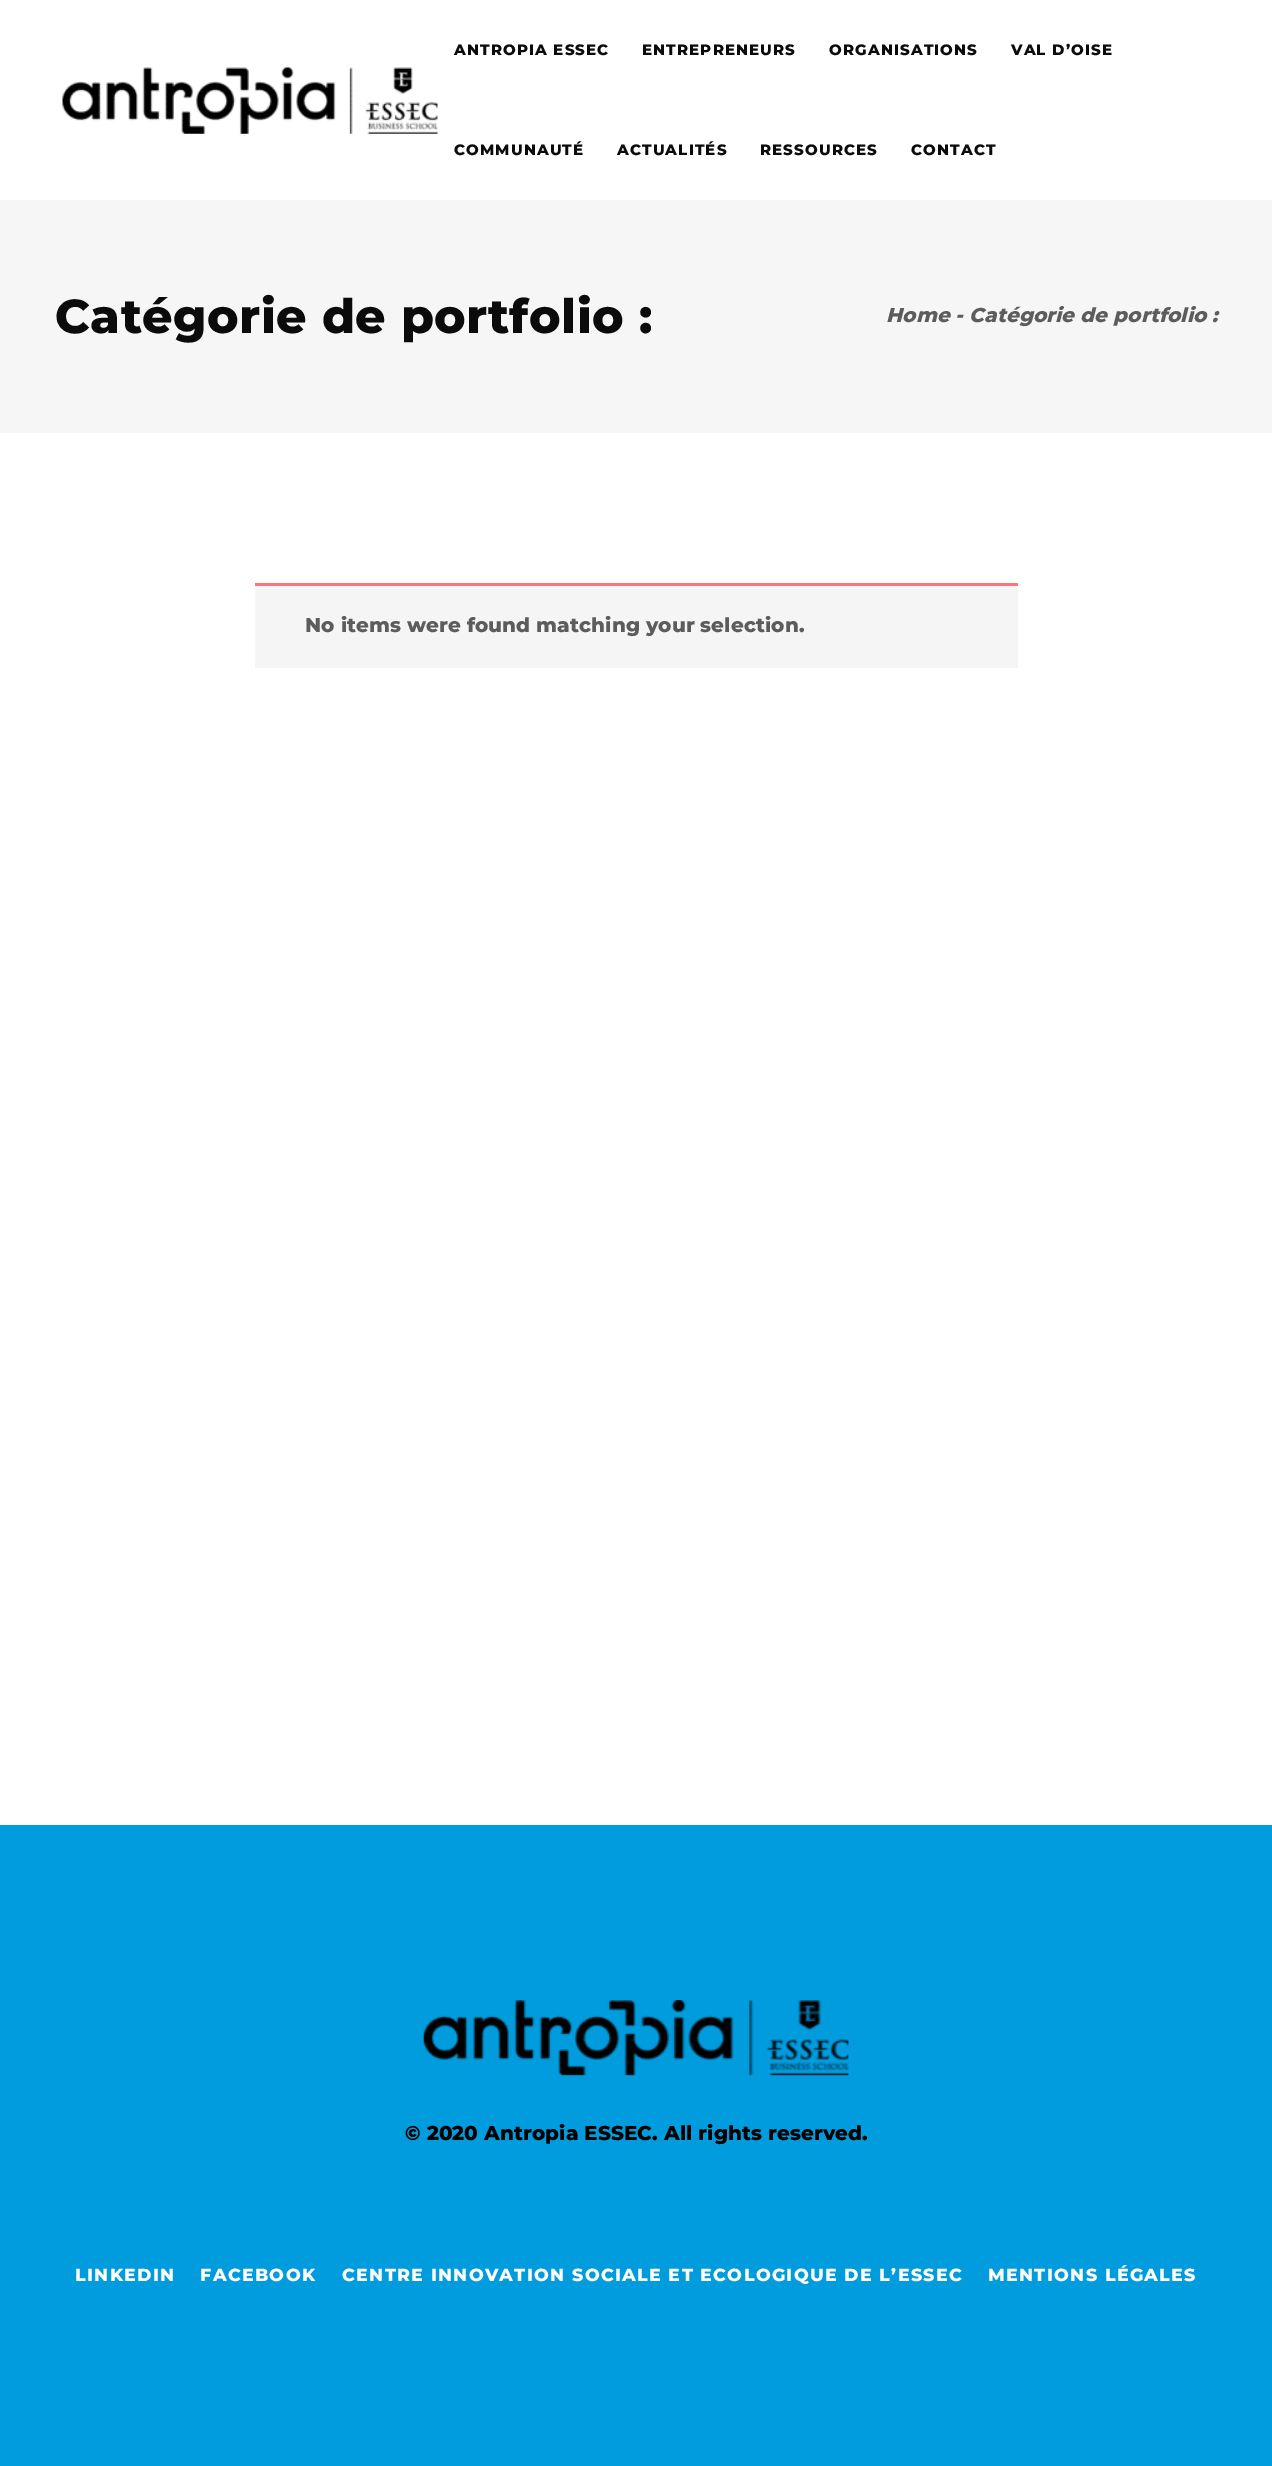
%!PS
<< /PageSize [1272 2466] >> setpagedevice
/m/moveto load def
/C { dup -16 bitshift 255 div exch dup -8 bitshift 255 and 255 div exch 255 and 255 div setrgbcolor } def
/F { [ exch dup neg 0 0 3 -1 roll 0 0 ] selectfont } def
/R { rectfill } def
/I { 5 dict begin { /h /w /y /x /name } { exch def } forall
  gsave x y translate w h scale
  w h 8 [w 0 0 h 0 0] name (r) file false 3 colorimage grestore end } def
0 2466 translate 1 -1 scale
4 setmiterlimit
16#FFFFFF C
0 0 1272 2466 R
(1.rgb) 62 67 376 67 I
/Montserrat-ExtraBold 15 F
16#0B0B0B C
454 55 m 1.1 0 (ANTROPIA ESSEC) ashow
642 55 m 1.1 0 (ENTREPRENEURS) ashow
829 55 m 1.1 0 (ORGANISATIONS) ashow
1011 55 m 1.1 0 (VAL D’OISE) ashow
454 155 m 1.1 0 (COMMUNAUTÉ) ashow
617 155 m 1.1 0 (ACTUALITÉS) ashow
760 155 m 1.1 0 (RESSOURCES) ashow
911 155 m 1.1 0 (CONTACT) ashow
16#F6F6F6 C
0 200 1272 233 R
/Montserrat-ExtraBold 47.5 F
16#0B0B0B C
55 333 m .5 0 (Catégorie de portfolio :) ashow
/Montserrat-ExtraBoldItalic 20 F
16#5C5C5C C
886 322 m .1 0 (Home - Catégorie de portfolio :) ashow
16#F5F5F5 C
255 586 763 82 R
16#FF7276 C
255 583 763 3 R
/Montserrat-ExtraBold 20 F
16#5C5C5C C
305 632 m .1 0 (No items were found matching your selection.) ashow
16#009CDE C
0 1825 1272 641 R
(2.rgb) 423 2000 426 76 I
16#000000 C
405 2140 m .1 0 (© 2020 Antropia ESSEC. All rights reserved.) ashow
/Montserrat-ExtraBold 17.5 F
16#FFFFFF C
75 2281 m 1.3 0 (LINKEDIN) ashow
200 2281 m 1.3 0 (FACEBOOK) ashow
342 2281 m 1.3 0 (CENTRE INNOVATION SOCIALE ET ECOLOGIQUE DE L’ESSEC) ashow
988 2281 m 1.3 0 (MENTIONS LÉGALES) ashow
showpage
